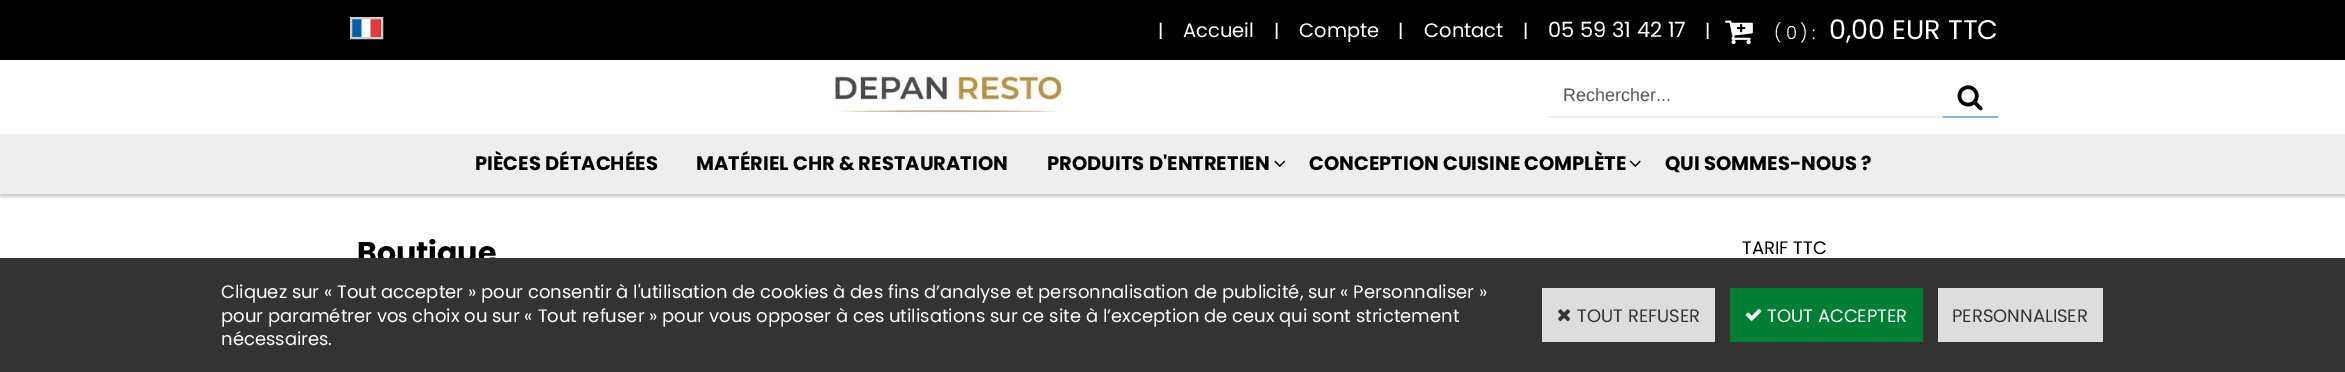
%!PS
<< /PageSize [2345 372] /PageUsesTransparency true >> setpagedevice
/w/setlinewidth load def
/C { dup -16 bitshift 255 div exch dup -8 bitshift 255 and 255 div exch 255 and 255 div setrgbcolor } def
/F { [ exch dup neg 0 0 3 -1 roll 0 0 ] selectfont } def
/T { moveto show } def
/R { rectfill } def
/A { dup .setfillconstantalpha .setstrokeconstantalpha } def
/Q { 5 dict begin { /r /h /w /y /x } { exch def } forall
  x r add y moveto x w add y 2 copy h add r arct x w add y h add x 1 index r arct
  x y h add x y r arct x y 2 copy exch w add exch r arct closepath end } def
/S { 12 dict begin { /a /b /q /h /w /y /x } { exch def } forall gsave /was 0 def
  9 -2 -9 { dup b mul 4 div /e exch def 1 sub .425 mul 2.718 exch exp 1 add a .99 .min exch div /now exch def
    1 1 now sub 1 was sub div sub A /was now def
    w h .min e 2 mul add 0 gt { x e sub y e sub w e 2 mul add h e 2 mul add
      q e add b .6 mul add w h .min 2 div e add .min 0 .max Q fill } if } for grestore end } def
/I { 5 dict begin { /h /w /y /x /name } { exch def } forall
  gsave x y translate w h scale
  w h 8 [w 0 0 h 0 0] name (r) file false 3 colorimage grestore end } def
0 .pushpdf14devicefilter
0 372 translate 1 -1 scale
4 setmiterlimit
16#FFFFFF C
0 0 2345 372 R
16#000000 C
0 0 2345 60 R
(1.rgb) 352 19 29 18 I
16#CCCCCC C
2 w
351 18 31 20 rectstroke
/Poppins-Regular 18 F
16#FFFFFF C
(|) 1158 37 T
/Poppins-Regular 19.5 F
(Accueil) 1183 37 T
/Poppins-Regular 18 F
(|) 1274 37 T
/Poppins-Regular 19.5 F
(Compte) 1299 37 T
/Poppins-Regular 18 F
(|) 1398 37 T
/Poppins-Regular 19.5 F
(Contact) 1424 37 T
/Poppins-Regular 18 F
(|) 1523 37 T
/Poppins-Regular 21 F
(05 59 31 42 17) 1548 37 T
/Poppins-Regular 18 F
(|) 1705 37 T
(2.rgb) 1725 20 28 25 I
/Poppins-Light 18 F
(\( 0) 1774 39 T
(\) :) 1800 39 T
/Poppins-Regular 27 F
(0,00 EUR TTC) 1829 39 T
(3.rgb) 832 75 232 38 I
16#EEEEEE C
1548 116 395 2 R
/LiberationSans-Regular 18 F
16#555555 C
(Rechercher...) 1563 101 T
16#7FB7E4 C
1943 116 55 2 R
(4.rgb) 1957 85 26 26 I
16#000000 C
0 137 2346 60 0 1.5 .2 S
16#EEEEEE C
0 134 2345 60 R
/Poppins-Bold 19.5 F
16#000000 C
(PIÈCES DÉTACHÉES) 475 170 T
(MATÉRIEL CHR & RESTAURATION) 696 170 T
(PRODUITS D'ENTRETIEN) 1047 170 T
(5.rgb) 1274 160 12 7 I
(CONCEPTION CUISINE COMPLÈTE) 1309 170 T
(6.rgb) 1629 160 12 7 I
(QUI SOMMES-NOUS ?) 1665 170 T
/Poppins-Bold 30 F
(Boutique) 357 263 T
/Poppins-Regular 18 F
(TARIF TTC) 1742 254 T
16#333333 C
0 258 2345 114 R
16#FFFFFF C
(Cliquez sur « Tout accepter » pour consentir à l'utilisation de cookies à des fins d’analyse et personnalisation de publicité, sur « Personnaliser ») 221 298 T
(pour paramétrer vos choix ou sur « Tout refuser » pour vous opposer à ces utilisations sur ce site à l’exception de ceux qui sont strictement) 221 322 T
(nécessaires.) 221 345 T
16#DDDDDD C
1542 288 173 54 R
(7.rgb) 1558 309 12 13 I
16#333333 C
(TOUT REFUSER) 1577 322 T
16#007E33 C
1730 288 193 54 R
(8.rgb) 1745 309 17 12 I
16#FFFFFF C
(TOUT ACCEPTER) 1767 322 T
16#DDDDDD C
1938 288 165 54 R
16#333333 C
(PERSONNALISER) 1952 322 T
.poppdf14devicefilter showpage
